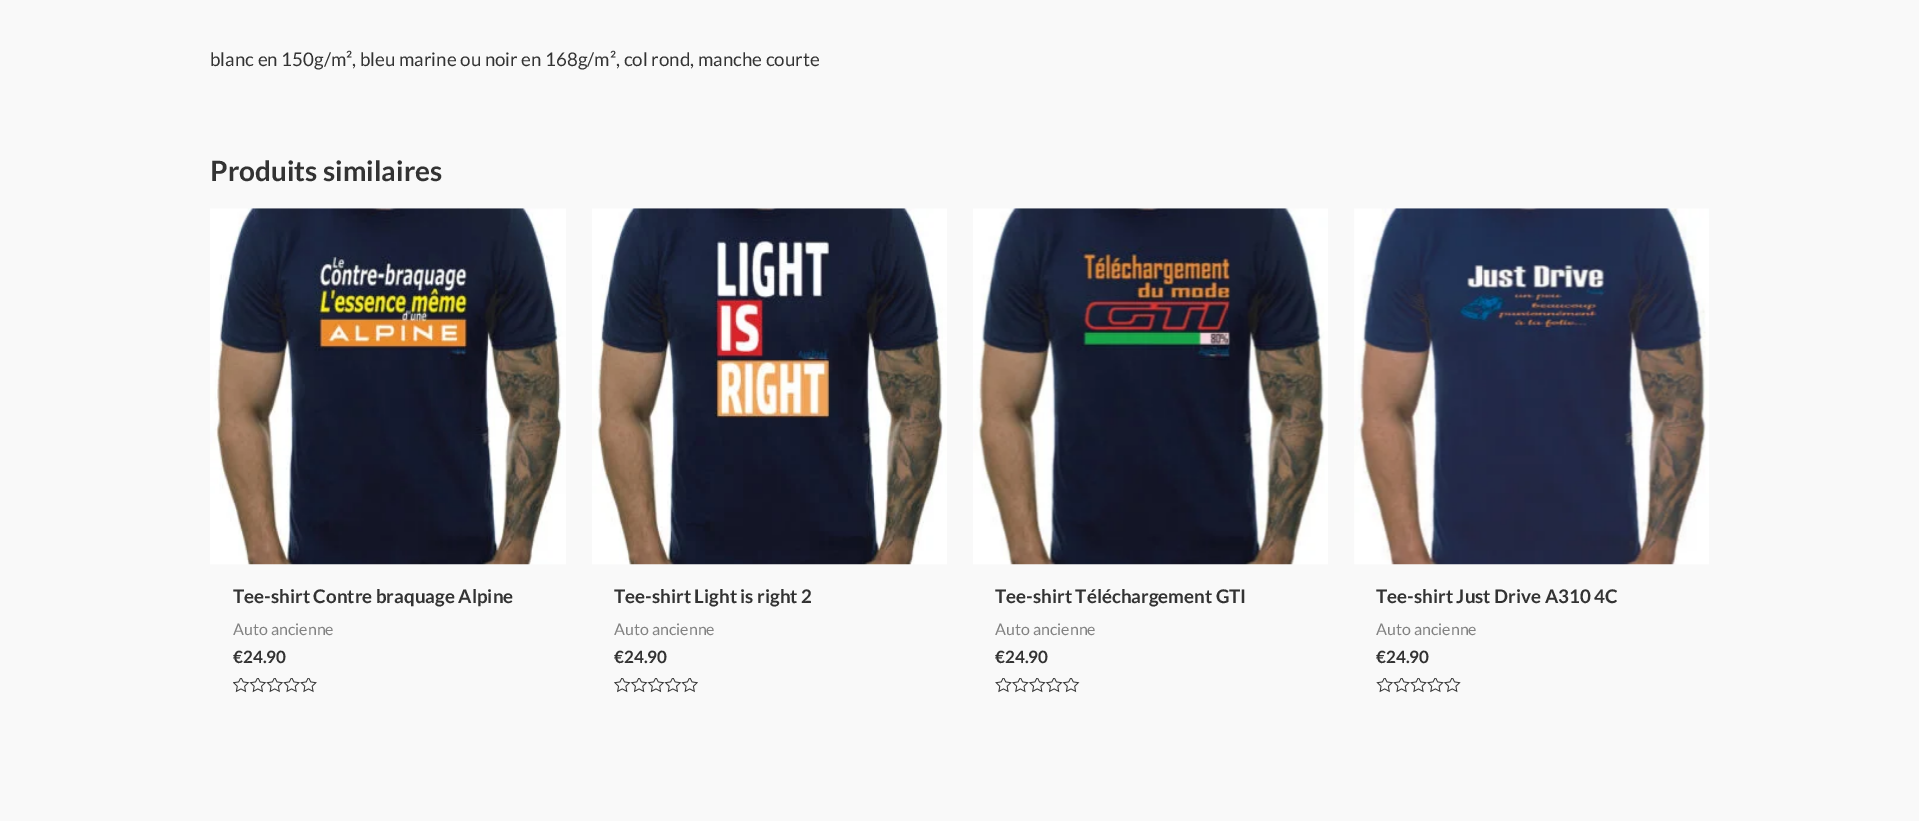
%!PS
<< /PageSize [1919 821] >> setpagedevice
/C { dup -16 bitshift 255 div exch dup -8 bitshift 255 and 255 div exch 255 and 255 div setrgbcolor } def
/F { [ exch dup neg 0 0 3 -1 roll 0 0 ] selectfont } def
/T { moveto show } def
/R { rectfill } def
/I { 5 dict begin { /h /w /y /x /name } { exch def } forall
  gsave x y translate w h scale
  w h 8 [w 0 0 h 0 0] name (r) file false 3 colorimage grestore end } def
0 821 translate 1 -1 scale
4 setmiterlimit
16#F9F9F9 C
0 0 1919 821 R
/Lato-Regular 18.75 F
16#333333 C
(blanc en 150g/m², bleu marine ou noir en 168g/m², col rond, manche courte) 210 66 T
/Lato-Bold 28 F
(Produits similaires) 210 181 T
(1.rgb) 210 208 356 357 I
/Lato-Bold 18.75 F
(Tee-shirt Contre braquage Alpine) 233 603 T
/Lato-Regular 16 F
16#828282 C
(Auto ancienne) 233 635 T
/Lato-Bold 17 F
16#333333 C
(€24.90) 233 663 T
(2.rgb) 233 678 84 15 I
(3.rgb) 592 208 355 357 I
/Lato-Bold 18.75 F
(Tee-shirt Light is right 2) 614 603 T
/Lato-Regular 16 F
16#828282 C
(Auto ancienne) 614 635 T
/Lato-Bold 17 F
16#333333 C
(€24.90) 614 663 T
(4.rgb) 614 678 84 15 I
(5.rgb) 973 208 355 357 I
/Lato-Bold 18.75 F
(Tee-shirt Téléchargement GTI) 995 603 T
/Lato-Regular 16 F
16#828282 C
(Auto ancienne) 995 635 T
/Lato-Bold 17 F
16#333333 C
(€24.90) 995 663 T
(6.rgb) 995 678 85 15 I
(7.rgb) 1354 208 355 357 I
/Lato-Bold 18.75 F
(Tee-shirt Just Drive A310 4C) 1376 603 T
/Lato-Regular 16 F
16#828282 C
(Auto ancienne) 1376 635 T
/Lato-Bold 17 F
16#333333 C
(€24.90) 1376 663 T
(8.rgb) 1376 678 85 15 I
showpage
